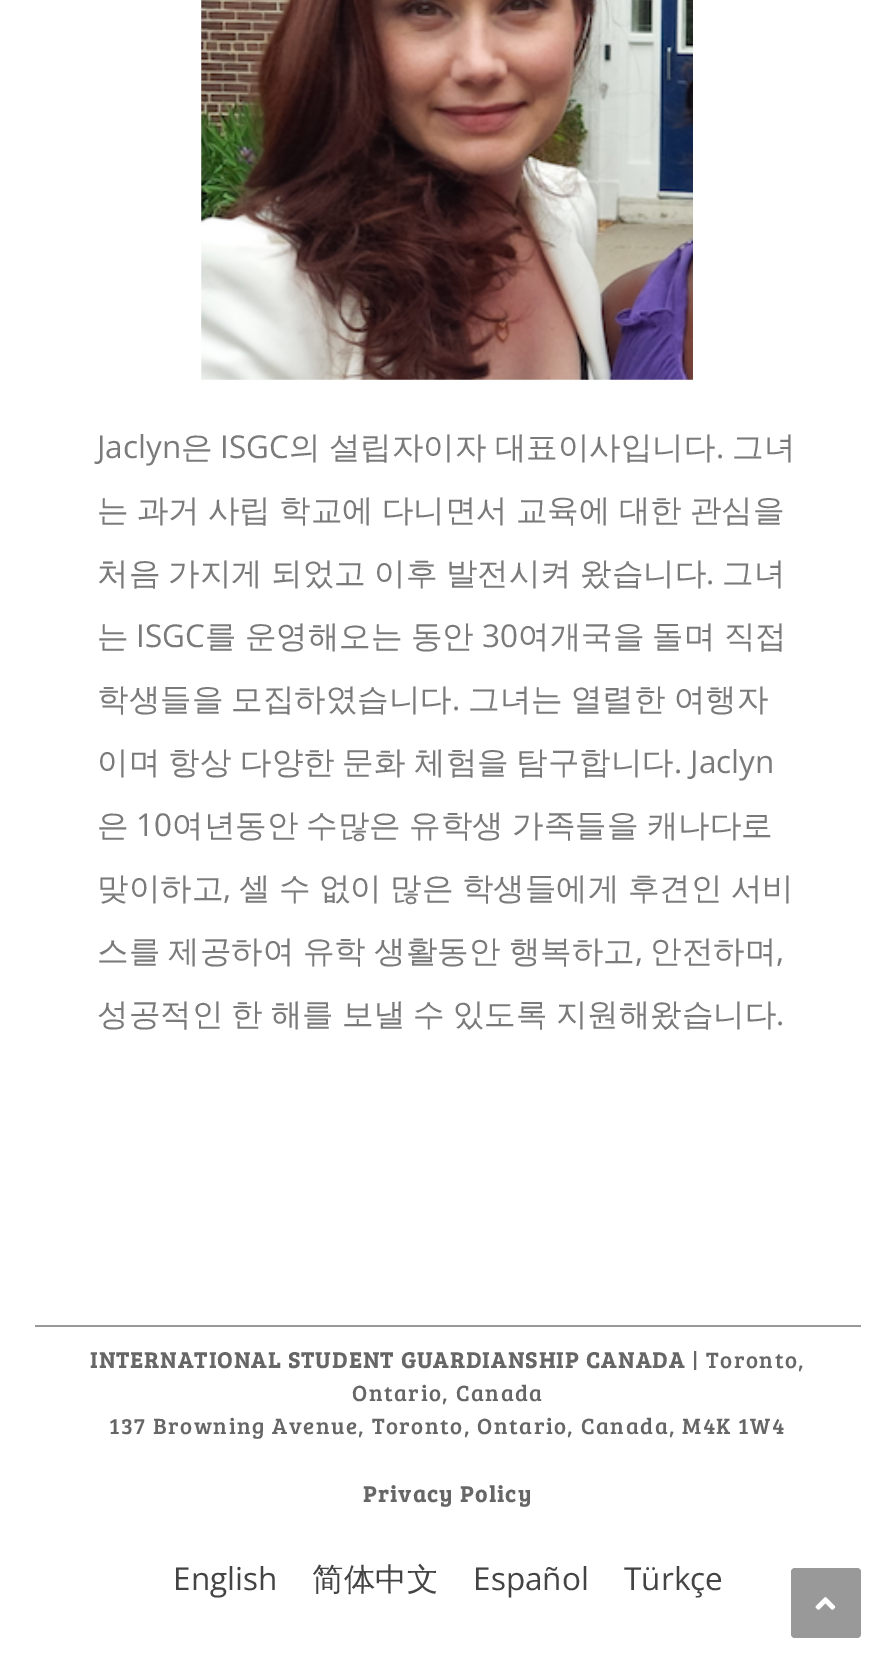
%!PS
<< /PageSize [896 1673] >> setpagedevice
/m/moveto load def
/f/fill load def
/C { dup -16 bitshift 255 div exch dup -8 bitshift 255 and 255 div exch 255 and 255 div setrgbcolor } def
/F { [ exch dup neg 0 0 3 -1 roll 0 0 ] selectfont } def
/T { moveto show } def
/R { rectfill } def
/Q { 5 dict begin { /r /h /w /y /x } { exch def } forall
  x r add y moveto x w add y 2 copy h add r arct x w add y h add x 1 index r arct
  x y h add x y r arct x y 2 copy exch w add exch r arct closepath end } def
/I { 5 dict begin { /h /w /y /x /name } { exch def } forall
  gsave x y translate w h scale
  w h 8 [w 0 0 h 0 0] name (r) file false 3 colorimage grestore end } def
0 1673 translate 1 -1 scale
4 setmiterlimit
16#FFFFFF C
0 0 896 1673 R
(1.rgb) 201 0 492 380 I
/OpenSans-Regular 31.5 F
16#7A7A7A C
(Jaclyn) 97 458 T
/WenQuanYiZenHei-Medium 31.5 F
(은) 181 458 T
/OpenSans-Regular 31.5 F
(ISGC) 220 458 T
/WenQuanYiZenHei-Medium 31.5 F
289 458 m -1 0 32 (의 설립자이자 대표이사입니다) widthshow
/OpenSans-Regular 31.5 F
(.) 716 458 T
/WenQuanYiZenHei-Medium 31.5 F
(그녀) 732 458 T
97 521 m -1.25 0 32 (는 과거 사립 학교에 다니면서 교육에 대한 관심을) widthshow
97 584 m -1 0 32 (처음 가지게 되었고 이후 발전시켜 왔습니다) widthshow
/OpenSans-Regular 31.5 F
(.) 706 584 T
/WenQuanYiZenHei-Medium 31.5 F
(그녀) 722 584 T
(는) 97 647 T
/OpenSans-Regular 31.5 F
(ISGC) 136 647 T
/WenQuanYiZenHei-Medium 31.5 F
205 647 m -1 0 32 (를 운영해오는 동안) widthshow
/OpenSans-Regular 31.5 F
(30) 482 647 T
/WenQuanYiZenHei-Medium 31.5 F
518 647 m -1 0 32 (여개국을 돌며 직접) widthshow
97 710 m -1 0 32 (학생들을 모집하였습니다) widthshow
/OpenSans-Regular 31.5 F
(.) 452 710 T
/WenQuanYiZenHei-Medium 31.5 F
468 710 m -1 0 32 (그녀는 열렬한 여행자) widthshow
(이며) 97 773 T
(항상) 168 773 T
(다양한) 240 773 T
(문화) 342 773 T
(체험을) 414 773 T
(탐구합니다) 516 773 T
/OpenSans-Regular 31.5 F
(. Jaclyn) 674 773 T
/WenQuanYiZenHei-Medium 31.5 F
(은) 97 836 T
/OpenSans-Regular 31.5 F
(10) 136 836 T
/WenQuanYiZenHei-Medium 31.5 F
172 836 m -1 0 32 (여년동안 수많은 유학생 가족들을 캐나다로) widthshow
(맞이하고) 97 899 T
/OpenSans-Regular 31.5 F
(,) 223 899 T
/WenQuanYiZenHei-Medium 31.5 F
239 899 m -1 0 32 (셀 수 없이 많은 학생들에게 후견인 서비) widthshow
97 962 m -1 0 32 (스를 제공하여 유학 생활동안 행복하고) widthshow
/OpenSans-Regular 31.5 F
(,) 635 962 T
/WenQuanYiZenHei-Medium 31.5 F
(안전하며) 650 962 T
/OpenSans-Regular 31.5 F
(,) 776 962 T
/WenQuanYiZenHei-Medium 31.5 F
97 1025 m -1.25 0 32 (성공적인 한 해를 보낼 수 있도록 지원해왔습니다) widthshow
/OpenSans-Regular 31.5 F
(.) 776 1025 T
16#999999 C
35 1325 826 2 R
/BreeSerif-Bold 22.75 F
16#666666 C
90 1368 m 1.57 0 (INTERNATIONAL STUDENT GUARDIANSHIP CANADA) ashow
/BreeSerif-Regular 22.75 F
692 1368 m 1.57 0 (| Toronto,) ashow
352 1401 m 1.57 0 (Ontario, Canada) ashow
109 1434 m 1.57 0 (137 Browning Avenue, Toronto, Ontario, Canada, M4K 1W4) ashow
/BreeSerif-Bold 22.75 F
363 1502 m 1.57 0 (Privacy Policy) ashow
/OpenSans-Regular 31.5 F
16#444444 C
(English) 173 1590 T
/WenQuanYiZenHei-Medium 31.5 F
(简体中文) 312 1590 T
/OpenSans-Regular 31.5 F
(Español) 473 1590 T
(Türkçe) 624 1590 T
16#999999 C
791 1568 70 70 4 Q f
(2.rgb) 815 1597 21 13 I
showpage
